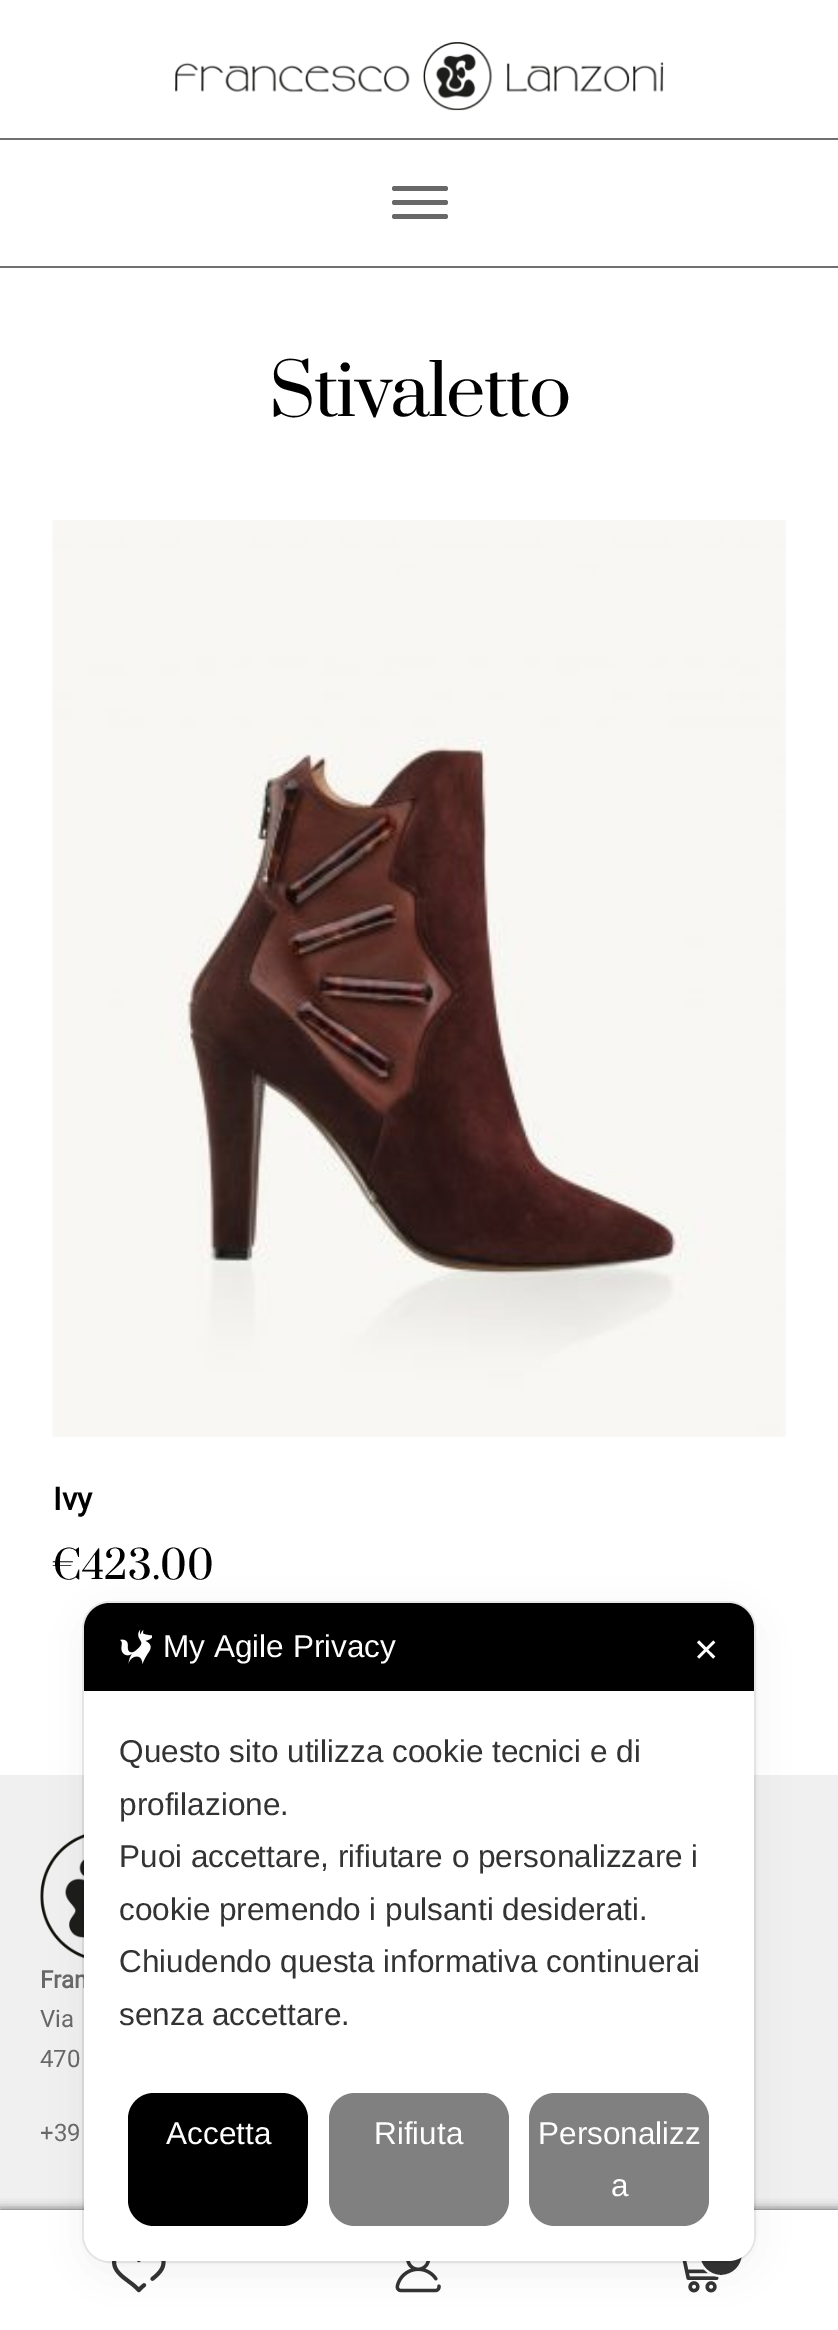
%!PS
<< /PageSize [838 2330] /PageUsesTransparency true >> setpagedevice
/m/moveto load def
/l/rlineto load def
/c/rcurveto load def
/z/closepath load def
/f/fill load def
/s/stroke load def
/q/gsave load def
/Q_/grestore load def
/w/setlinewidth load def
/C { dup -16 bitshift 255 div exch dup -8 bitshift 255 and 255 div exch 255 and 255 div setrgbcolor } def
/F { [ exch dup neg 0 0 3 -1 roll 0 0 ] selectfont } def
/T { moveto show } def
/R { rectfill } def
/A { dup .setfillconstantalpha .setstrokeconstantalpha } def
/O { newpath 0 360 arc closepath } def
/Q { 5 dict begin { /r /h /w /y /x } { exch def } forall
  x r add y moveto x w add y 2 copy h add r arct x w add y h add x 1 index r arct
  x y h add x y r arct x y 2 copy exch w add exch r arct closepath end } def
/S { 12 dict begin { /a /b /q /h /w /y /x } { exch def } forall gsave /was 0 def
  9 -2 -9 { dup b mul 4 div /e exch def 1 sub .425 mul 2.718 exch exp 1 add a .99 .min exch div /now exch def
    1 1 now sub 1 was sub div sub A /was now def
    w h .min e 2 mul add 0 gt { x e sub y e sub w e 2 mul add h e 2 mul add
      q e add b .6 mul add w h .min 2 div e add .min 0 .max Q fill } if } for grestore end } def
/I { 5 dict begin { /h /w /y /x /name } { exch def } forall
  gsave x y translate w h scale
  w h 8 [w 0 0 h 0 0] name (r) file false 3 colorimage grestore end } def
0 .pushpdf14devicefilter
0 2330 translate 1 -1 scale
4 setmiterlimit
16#FFFFFF C
0 0 838 2330 R
16#707070 C
0 266 838 2 R
0 138 838 2 R
(1.rgb) 175 42 489 69 I
16#686868 C
392 186 56 5 2.5 Q f
392 200 56 5 2.5 Q f
392 214 56 5 2.5 Q f
/Prata-Regular 70 F
16#000000 C
269 416 m -1.75 0 (Stivaletto) ashow
(2.rgb) 52 520 734 917 I
/Heebo-Bold 31.5 F
(Ivy) 53 1510 T
/Prata-Regular 38.5 F
(€423.00) 53 1579 T
16#F0F0F0 C
0 1775 838 435 R
(3.rgb) 40 1834 44 125 I
/Heebo-Bold 24 F
16#686868 C
(Fran) 40 1988 T
/Heebo-Regular 24 F
(Via) 40 2027 T
(470) 40 2067 T
(+39) 40 2141 T
16#000000 C
0 2210 838 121 0 5 .7 S
16#FFFFFF C
0 2210 838 120 R
(4.rgb) 112 2261 54 32 I
(5.rgb) 395 2261 46 32 I
(6.rgb) 682 2261 37 32 I
16#333333 C
721 2254 22 O q f Q_
16#FFFFFF C
2 w
s
0.08 A
16#000000 C
83 1602 672 660 27 Q s
1 A
84 1614 670 658 26 21 .05 S
16#FFFFFF C
84 1603 670 658 26 Q f
16#000000 C
110 1603 m 618 0 l 14.5 0 26 11.5 26 26 c 0 62 l -670 0 l 0 -62 l 0 -14.5 11.5 -26 26 -26 c z f
(7.rgb) 120 1629 32 35 I
/LiberationSans-Regular 31.5 F
16#FFFFFF C
(My Agile Privacy) 163 1657 T
/DejaVuSans-Regular 31.5 F
(✕) 693 1661 T
/LiberationSans-Regular 31.5 F
16#333333 C
(Questo sito utilizza cookie tecnici e di) 119 1762 T
(profilazione.) 119 1815 T
(Puoi accettare, rifiutare o personalizzare i) 119 1867 T
(cookie premendo i pulsanti desiderati.) 119 1920 T
(Chiudendo questa informativa continuerai) 119 1972 T
(senza accettare.) 119 2025 T
16#000000 C
128 2093 180 133 26 Q f
16#FFFFFF C
(Accetta) 166 2144 T
16#808080 C
329 2093 180 133 26 Q f
16#FFFFFF C
(Rifiuta) 374 2144 T
16#808080 C
529 2093 180 133 26 Q f
16#FFFFFF C
(Personalizz) 538 2144 T
(a) 611 2196 T
.poppdf14devicefilter showpage
